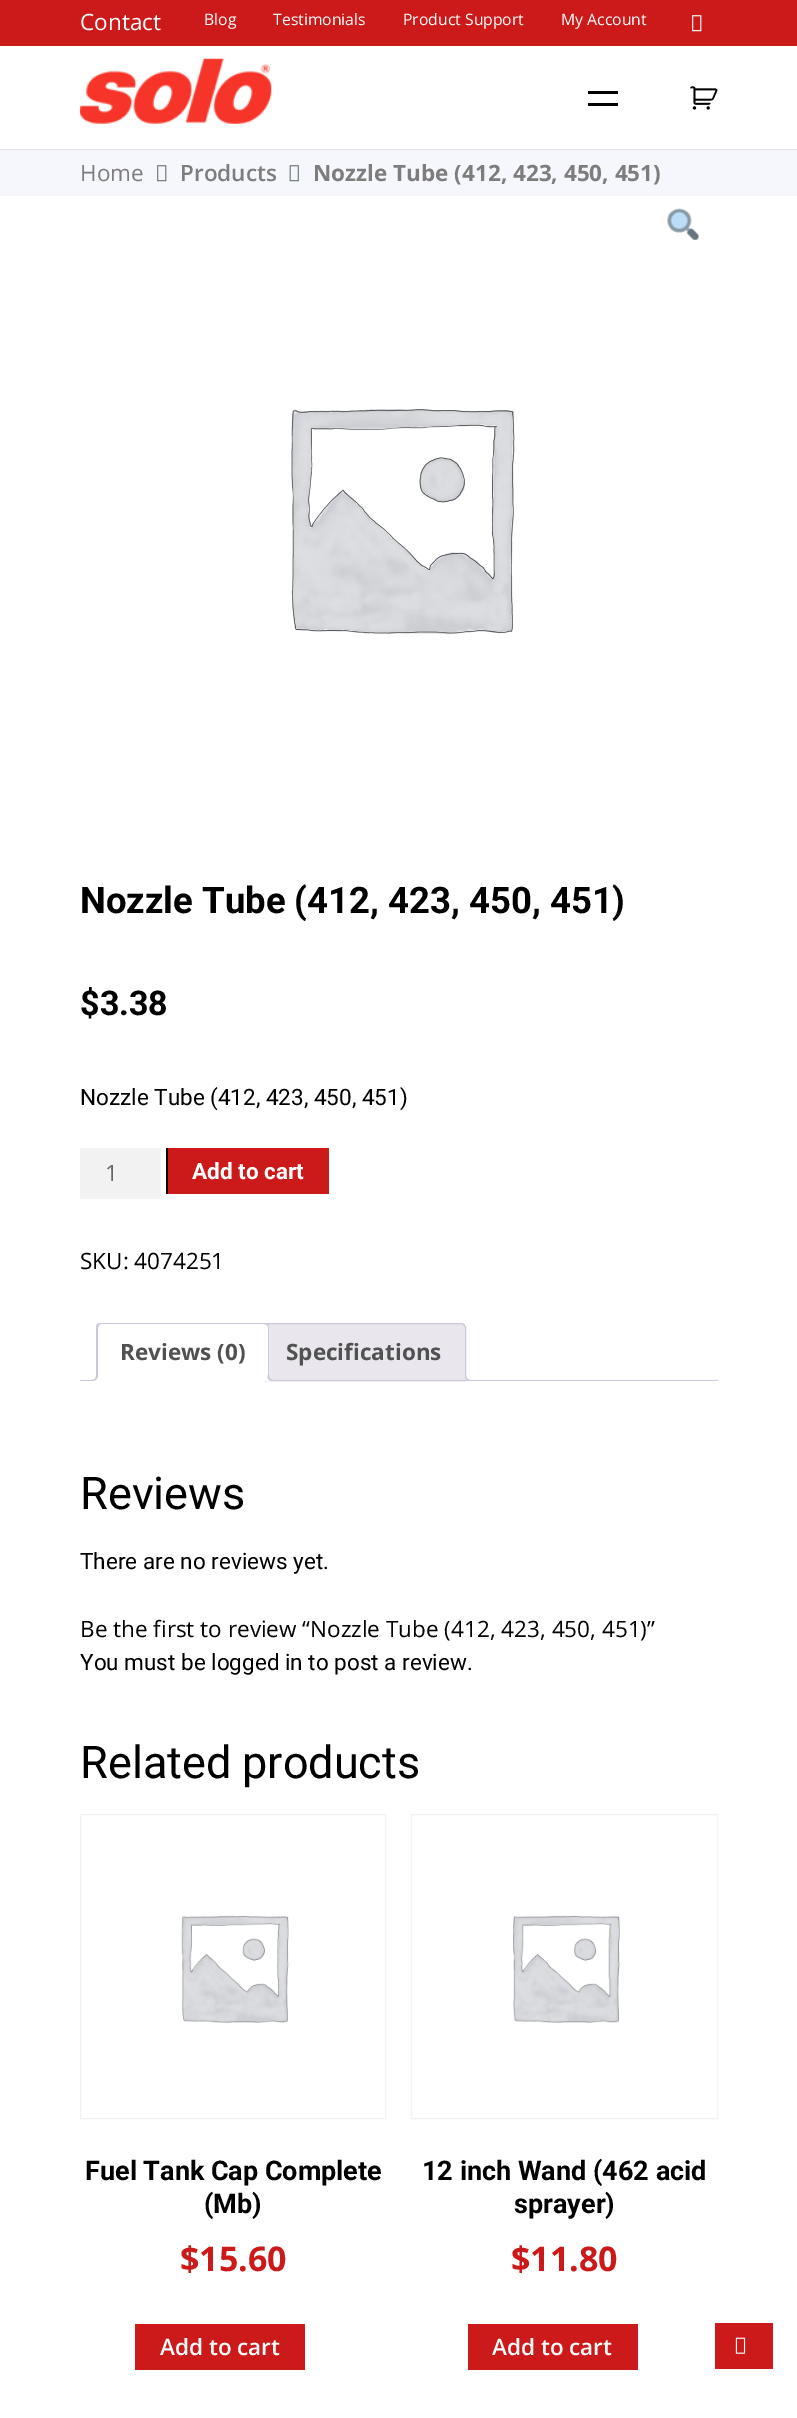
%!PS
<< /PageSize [797 2418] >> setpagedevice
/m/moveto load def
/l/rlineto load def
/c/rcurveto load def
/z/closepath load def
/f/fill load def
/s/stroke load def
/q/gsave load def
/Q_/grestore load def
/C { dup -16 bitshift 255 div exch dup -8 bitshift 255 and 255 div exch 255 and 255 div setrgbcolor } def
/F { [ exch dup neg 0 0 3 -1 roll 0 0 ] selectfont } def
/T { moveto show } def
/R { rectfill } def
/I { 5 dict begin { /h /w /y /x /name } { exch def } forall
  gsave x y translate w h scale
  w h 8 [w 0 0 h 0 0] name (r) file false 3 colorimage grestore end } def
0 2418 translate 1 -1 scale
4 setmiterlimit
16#FFFFFF C
0 0 797 2418 R
16#E0E0E0 C
0 149 797 1 R
16#CC1A1A C
0 0 797 46 R
/OpenSans-Regular 22.5 F
16#FFFFFF C
(Contact) 80 30 T
/OpenSans-Regular 15.75 F
(Blog) 204 25 T
(Testimonials) 273 25 T
(Product Support) 403 25 T
(My Account) 561 25 T
(1.rgb) 692 15 10 17 I
(2.rgb) 80 58 192 66 I
16#000000 C
588 91 30 3 R
588 103 30 3 R
(3.rgb) 690 86 28 24 I
16#F6F7FC C
0 150 797 46 R
/OpenSans-Regular 22.5 F
16#7D7D7D C
(Home) 80 181 T
(4.rgb) 157 165 10 17 I
/OpenSans-SemiBold 22.5 F
(Products) 180 181 T
(5.rgb) 289 165 10 17 I
/OpenSans-Bold 22.5 F
(Nozzle Tube \(412, 423, 450, 451\)) 313 181 T
(6.rgb) 667 208 32 32 I
(7.rgb) 291 409 224 226 I
/Roboto-Bold 36.5 F
16#000000 C
(Nozzle Tube \(412, 423, 450, 451\)) 80 913 T
/Roboto-Bold 34 F
($3.38) 80 1015 T
/Roboto-Regular 22.5 F
(Nozzle Tube \(412, 423, 450, 451\)) 80 1105 T
16#F2F2F2 C
80 1148 81 51 R
/OpenSans-Regular 22.5 F
16#666666 C
(1) 105 1181 T
16#CC1A1A C
168 1148 161 46 R
16#000000 C
166 1148 2 46 R
/Roboto-Bold 22.5 F
16#FFFFFF C
(Add to cart) 192 1179 T
/OpenSans-Regular 22.5 F
16#000000 C
(SKU: 4074251) 80 1269 T
16#E9E6ED C
268 1323.5 m 193 0 l 2.5 0 4.5 2 4.5 4.5 c 0 52.5 l -202 0 l 0 -52.5 l 0 -2.5 2 -4.5 4.5 -4.5 c z q f Q_
16#CFC8D8 C
s
q
80 1323 638 58 rectclip
16#E9E6ED C
463 1378 m 0 4 2 6 6 6 c 0 -3 l -1.5 0 -3 -1.5 -3.5 -3 c z f
Q_
465 1375 m 6 0 l 0 6 l -3 0 -6 -1 -6 -5 c z 466 1375 m 5 0 l 0 5 l -2 0 -5 -1 -5 -4 c z eofill
80 1380 638 1 R
16#FFFFFF C
101 1323 m 163 0 l 3 0 5 2 5 5 c 0 53 l -173 0 l 0 -53 l 0 -3 2 -5 5 -5 c z f
q
80 1323 638 58 rectclip
16#CFC8D8 C
101 1324 m -2 1 l -2 -1 l 2 -2 l 167 0 l 2 2 l -1 1 l -3 -1 l z f
Q_
16#CFC8D8 C
269 1381 m -1 -1 l 0 -53 l -1 -2 l 1 -1 l 1 2 l z f
96 1326 m 1 -2 l 2 1 l -1 3 l 0 52 l -2 1 l z f
/OpenSans-Bold 22.5 F
16#515151 C
(Reviews \(0\)) 120 1360 T
q
80 1323 638 58 rectclip
16#FFFFFF C
94 1381 m 0 3 l 4 0 6 -2 6 -6 c -3 0 l -.5 1.5 -1.5 2.5 -3 3 c z f
Q_
16#CFC8D8 C
91 1375 m 6.5 0 l 0 4.5 -2 6 -6.5 6 c z 91 1375 m 5 0 l 0 3.5 -1 5 -5 5 c z eofill
q
80 1323 638 58 rectclip
16#FFFFFF C
265 1378 m 0 4 2 6 6 6 c 0 -3 l -1.5 -.5 -2.5 -1.5 -3 -3 c z f
Q_
267.5 1375 m 6.5 0 l 0 6 l -3.5 0 -6.5 -1 -6.5 -5 c z 269 1375 m 5 0 l 0 5 l -2.5 0 -5 -1 -5 -4 c z eofill
16#515151 C
(Specifications) 286 1360 T
/Roboto-Regular 45 F
16#000000 C
(Reviews) 80 1509 T
/Roboto-Regular 22.5 F
(There are no reviews yet.) 80 1569 T
/OpenSans-Regular 22.5 F
(Be the first to review “Nozzle Tube \(412, 423, 450, 451\)”) 80 1637 T
/Roboto-Regular 22.5 F
(You must be logged in to post a review.) 80 1670 T
/Roboto-Regular 45 F
(Related products) 80 1778 T
16#F2F2F2 C
80.5 1814.5 305 304 rectstroke
(8.rgb) 181 1915 108 108 I
/Roboto-Bold 27 F
16#000000 C
(Fuel Tank Cap Complete) 85 2180 T
(\(Mb\)) 204 2213 T
/OpenSans-Bold 34 F
16#CC1A1A C
($15.60) 180 2271 T
135 2324 170 46 R
/OpenSans-SemiBold 22.5 F
16#FFFFFF C
(Add to cart) 160 2355 T
16#F2F2F2 C
411.5 1814.5 306 304 rectstroke
(9.rgb) 513 1915 107 108 I
/Roboto-Bold 27 F
16#000000 C
(12 inch Wand \(462 acid) 422 2180 T
(sprayer\)) 514 2213 T
/OpenSans-Bold 34 F
16#CC1A1A C
($11.80) 511 2271 T
468 2324 170 46 R
/OpenSans-SemiBold 22.5 F
16#FFFFFF C
(Add to cart) 492 2355 T
16#CC1A1A C
715 2323 58 46 R
(10.rgb) 735 2337 11 17 I
showpage
